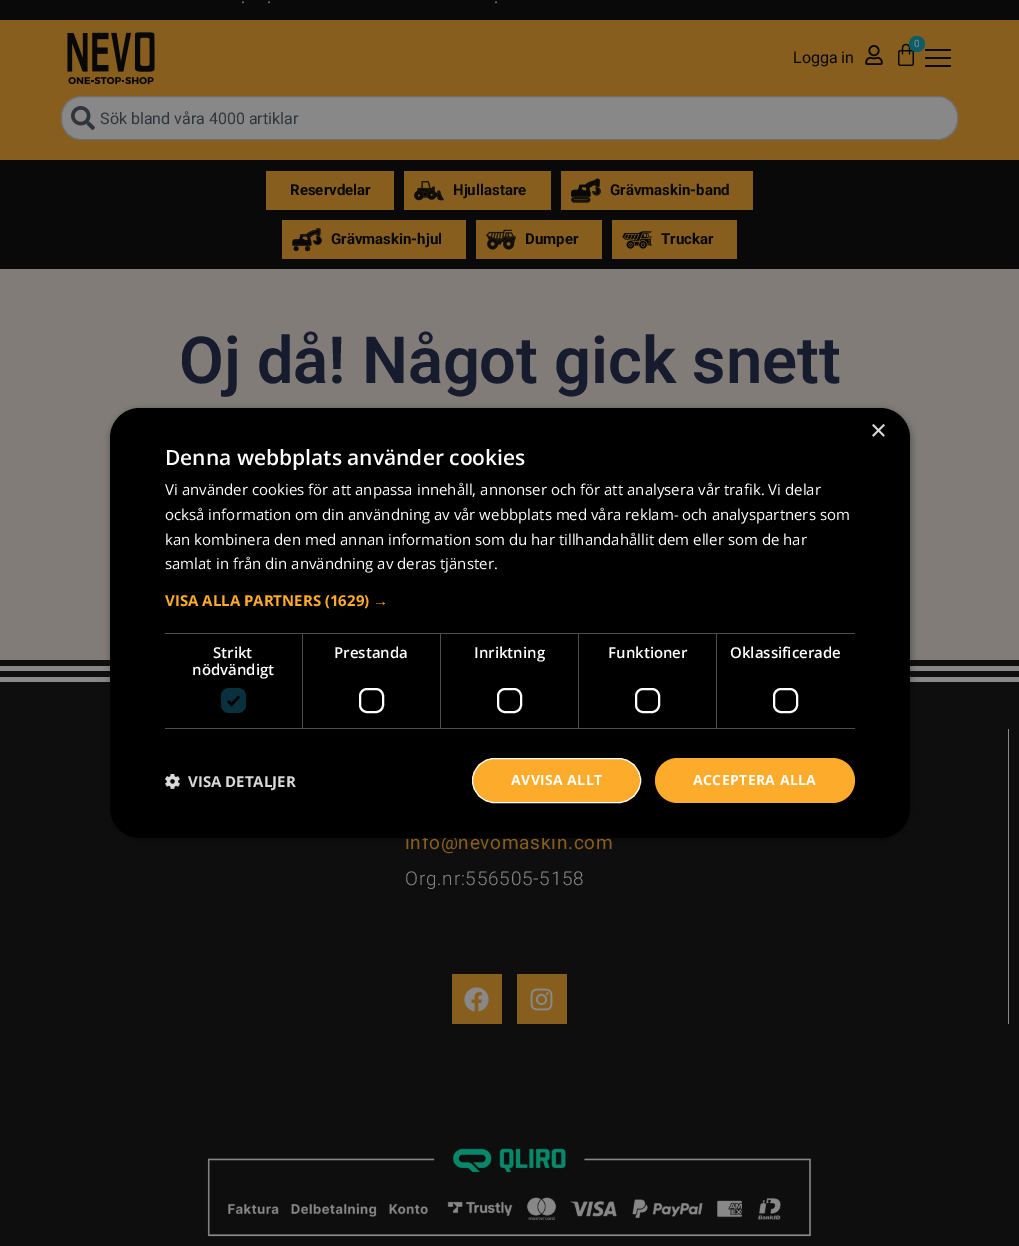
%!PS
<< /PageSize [1019 1246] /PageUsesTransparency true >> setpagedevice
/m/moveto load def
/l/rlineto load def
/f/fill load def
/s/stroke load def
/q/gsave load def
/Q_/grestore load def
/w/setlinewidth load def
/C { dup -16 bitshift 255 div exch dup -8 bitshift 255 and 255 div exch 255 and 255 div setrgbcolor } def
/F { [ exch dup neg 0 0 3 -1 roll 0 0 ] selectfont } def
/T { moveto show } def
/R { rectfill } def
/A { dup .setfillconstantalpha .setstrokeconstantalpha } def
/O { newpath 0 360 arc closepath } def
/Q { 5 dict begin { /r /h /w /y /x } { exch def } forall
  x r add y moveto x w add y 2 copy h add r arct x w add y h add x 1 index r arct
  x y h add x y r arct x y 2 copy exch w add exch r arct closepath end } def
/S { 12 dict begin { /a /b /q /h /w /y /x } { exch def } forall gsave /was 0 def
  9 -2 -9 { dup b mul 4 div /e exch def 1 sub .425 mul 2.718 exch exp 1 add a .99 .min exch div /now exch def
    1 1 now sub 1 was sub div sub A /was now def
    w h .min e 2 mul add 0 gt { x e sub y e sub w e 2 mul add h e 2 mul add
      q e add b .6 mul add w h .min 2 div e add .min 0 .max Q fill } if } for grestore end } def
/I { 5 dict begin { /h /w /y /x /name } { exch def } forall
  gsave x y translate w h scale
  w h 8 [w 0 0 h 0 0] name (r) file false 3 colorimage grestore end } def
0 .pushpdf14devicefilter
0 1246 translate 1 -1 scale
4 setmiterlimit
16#0E0E0E C
0 0 1019 1246 R
16#090909 C
0 0 1019 20 R
/Roboto-Regular 16 F
16#888888 C
(.) 241 3 T
(.) 267 3 T
(.) 494 3 T
16#875E1E C
0 20 1019 140 R
16#090909 C
0 160 1019 109 R
(1.rgb) 67 32 88 53 I
(2.rgb) 898 43 16 23 I
16#0B5E66 C
917 44 8 O f
/Roboto-Regular 10 F
16#888888 C
(0) 914 47 T
/Roboto-Regular 16 F
16#090909 C
(Logga in) 793 63 T
(3.rgb) 865 45 18 20 I
925 57 26 2 1 Q f
925 49 26 2 1 Q f
925 65 26 2 1 Q f
16#888888 C
61.5 96.5 896 43 19.5 Q q f Q_
16#6F6F6F C
s
(4.rgb) 71 106 24 24 I
16#31353A C
(Sök bland våra 4000 artiklar) 100 124 T
16#875E1E C
266 171 128 39 R
/Roboto-Bold 15 F
16#090909 C
(Reservdelar) 290 195 T
16#875E1E C
404 171 147 39 R
(5.rgb) 414 181 30 20 I
16#090909 C
(Hjullastare) 453 195 T
16#875E1E C
561 171 192 39 R
(6.rgb) 571 178 30 25 I
16#090909 C
(Grävmaskin-band) 610 195 T
16#875E1E C
282 220 184 39 R
(7.rgb) 292 228 30 24 I
16#090909 C
(Grävmaskin-hjul) 331 244 T
16#875E1E C
476 220 126 39 R
(8.rgb) 486 229 30 21 I
16#090909 C
(Dumper) 525 244 T
16#875E1E C
612 220 125 39 R
(9.rgb) 622 231 30 18 I
16#090909 C
(Truckar) 661 244 T
16#817C77 C
0 269 1019 391 R
/Roboto-SemiBold 65 F
16#171B2E C
(Oj då! Något gick snett) 179 383 T
16#888888 C
0 666 1019 5 R
0 677 1019 5 R
16#000000 C
111 410 800 430 30 4 .35 S
/Roboto-Regular 19 F
16#875E1E C
405 849 m .75 0 (info@nevomaskin.com) ashow
16#000000 C
110 408 800 430 30 Q f
/LiberationSans-Regular 29 F
16#D9D9D9 C
(×) 870 440 T
/OpenSans-SemiBold 21 F
16#FFFFFF C
(Denna webbplats använder cookies) 165 465 T
/OpenSans-Regular 15 F
(Vi använder cookies för att anpassa innehåll, annonser och för att analysera vår trafik. Vi delar) 165 495 T
(också information om din användning av vår webbplats med våra reklam- och analyspartners som) 165 520 T
(kan kombinera den med annan information som du har tillhandahållit dem eller som de har) 165 545 T
(samlat in från din användning av deras tjänster.) 165 569 T
/OpenSans-Bold 15 F
16#FDAB2B C
(VISA ALLA PARTNERS \(1629\)) 165 606 T
/LiberationSans-Bold 15 F
(→) 373 606 T
16#4D4D4D C
165 633 690 1 R
302 633 1 96 R
165 728 138 1 R
/OpenSans-SemiBold 15 F
16#FFFFFF C
(Strikt) 213 658 T
(nödvändigt) 192 675 T
16#09303E C
221 688 25 25 8 Q f
16#000000 C
2.6 w
228 701 m 3.5 3.5 l 7.5 -8 l s
16#4D4D4D C
440 633 1 96 R
303 728 138 1 R
16#FFFFFF C
(Prestanda) 334 658 T
2 w
360 689 23 23 7 Q s
16#4D4D4D C
578 633 1 96 R
441 728 138 1 R
16#FFFFFF C
(Inriktning) 474 658 T
498 689 23 23 7 Q s
16#4D4D4D C
716 633 1 96 R
579 728 276 1 R
16#FFFFFF C
(Funktioner) 608 658 T
636 689 23 23 7 Q s
(Oklassificerade) 730 658 T
774 689 23 23 7 Q s
(10.rgb) 165 774 15 15 I
/OpenSans-Bold 15 F
16#D9D9D9 C
(VISA DETALJER) 188 787 T
16#FDAB2B C
472.5 758.5 168 44 22 Q q f Q_
16#FFFFFF C
1 w
s
/OpenSans-Bold 14 F
511 785 m .4 0 (AVVISA ALLT) ashow
16#FDAB2B C
655 758 200 45 22.5 Q f
16#FFFFFF C
693 785 m .4 0 (ACCEPTERA ALLA) ashow
16#888888 C
1008 729 1 295 R
/Roboto-Light 19 F
405 885 m .75 0 (Org.nr:556505-5158) ashow
16#875E1E C
452 974 50 50 R
(11.rgb) 464 987 25 25 I
517 974 50 50 R
(12.rgb) 530 988 23 23 I
(13.rgb) 207 1148 605 89 I
.poppdf14devicefilter showpage
